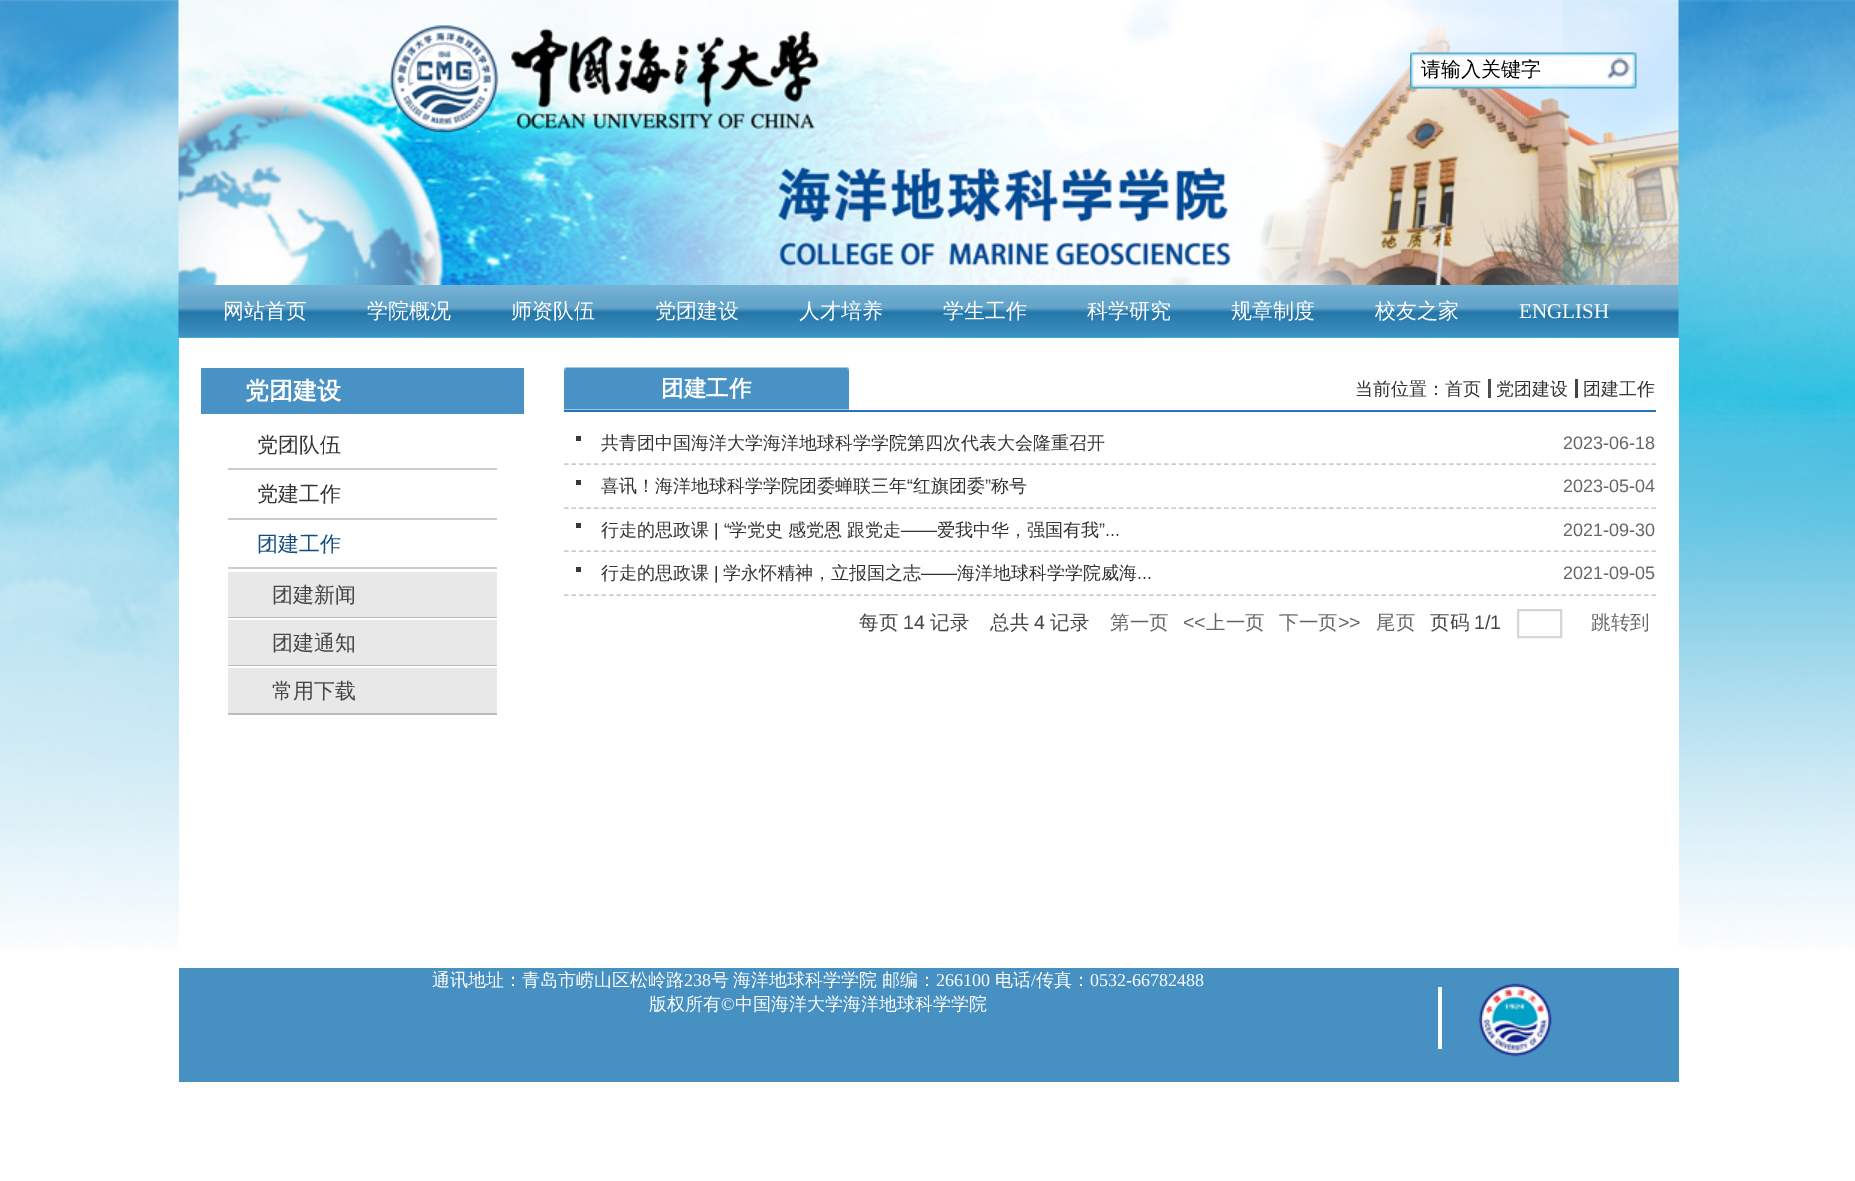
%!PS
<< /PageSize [1855 1181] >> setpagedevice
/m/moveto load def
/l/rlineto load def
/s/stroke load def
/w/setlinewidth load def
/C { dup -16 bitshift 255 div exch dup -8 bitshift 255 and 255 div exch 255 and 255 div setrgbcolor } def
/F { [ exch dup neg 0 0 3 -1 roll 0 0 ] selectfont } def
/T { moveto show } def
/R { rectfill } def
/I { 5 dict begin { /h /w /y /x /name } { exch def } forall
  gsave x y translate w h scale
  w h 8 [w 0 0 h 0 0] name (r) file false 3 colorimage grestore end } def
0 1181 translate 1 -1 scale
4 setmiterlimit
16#FFFFFF C
0 0 1855 1181 R
(1.rgb) 0 0 1855 949 I
(2.rgb) 178 0 1501 285 I
(3.rgb) 1410 52 227 37 I
/WenQuanYiZenHei-Medium 20 F
16#000000 C
(请输入关键字) 1421 76 T
(4.rgb) 178 285 1501 53 I
/WenQuanYiZenHei-Medium 21 F
16#FFFFFF C
(网站首页) 223 318 T
(学院概况) 367 318 T
(师资队伍) 511 318 T
(党团建设) 655 318 T
(人才培养) 799 318 T
(学生工作) 943 318 T
(科学研究) 1087 318 T
(规章制度) 1231 318 T
(校友之家) 1375 318 T
/LiberationSerif-Regular 21 F
(ENGLISH) 1519 318 T
179 338 1500 611 R
16#4892C5 C
201 368 323 46 R
/WenQuanYiZenHei-Bold 24 F
16#FFFFFF C
(党团建设) 245 399 T
16#CCCCCC C
228 468 269 2 R
/WenQuanYiZenHei-Medium 21 F
16#333333 C
(党团队伍) 257 452 T
16#CCCCCC C
228 518 269 2 R
16#333333 C
(党建工作) 257 501 T
16#CCCCCC C
228 567 269 2 R
16#124D83 C
(团建工作) 257 551 T
16#E8E8E8 C
228 572 269 45 R
16#BBBBBB C
228 617 269 1 R
16#454545 C
(团建新闻) 272 602 T
16#E8E8E8 C
228 620 269 45 R
16#BBBBBB C
228 665 269 1 R
16#454545 C
(团建通知) 272 650 T
16#E8E8E8 C
228 668 269 45 R
16#BBBBBB C
228 713 269 2 R
16#454545 C
(常用下载) 272 698 T
16#2B6FB8 C
564 410 1092 2 R
(5.rgb) 564 367 285 43 I
/WenQuanYiZenHei-Bold 22.5 F
16#FFFFFF C
(团建工作) 661 396 T
/WenQuanYiZenHei-Medium 18 F
16#333333 C
(当前位置：首页) 1355 395 T
16#4E4E4E C
1488 379 3 19 R
16#333333 C
(党团建设) 1496 395 T
16#444444 C
1575 379 3 19 R
16#333333 C
(团建工作) 1583 395 T
16#CCCCCC C
1.5 w
[4.5 3] 0 setdash
564 464 m 1092 0 l s
16#393939 C
576 436 5 5 R
16#333333 C
(共青团中国海洋大学海洋地球科学学院第四次代表大会隆重召开) 601 449 T
/LiberationSans-Regular 18 F
16#666666 C
(2023-06-18) 1563 449 T
16#CCCCCC C
564 508 m 1092 0 l s
16#393939 C
576 480 5 5 R
/WenQuanYiZenHei-Medium 18 F
16#333333 C
(喜讯！海洋地球科学学院团委蝉联三年) 601 492 T
/LiberationSans-Regular 18 F
(“) 907 492 T
/WenQuanYiZenHei-Medium 18 F
(红旗团委) 913 492 T
/LiberationSans-Regular 18 F
(”) 985 492 T
/WenQuanYiZenHei-Medium 18 F
(称号) 991 492 T
/LiberationSans-Regular 18 F
16#666666 C
(2023-05-04) 1563 492 T
16#CCCCCC C
564 551 m 1092 0 l s
16#393939 C
576 523 5 5 R
/WenQuanYiZenHei-Medium 18 F
16#333333 C
(行走的思政课) 601 536 T
/LiberationSans-Regular 18 F
(| “) 714 536 T
/WenQuanYiZenHei-Medium 18 F
(学党史) 729 536 T
(感党恩) 788 536 T
(跟党走) 847 536 T
/LiberationSans-Regular 18 F
(——) 901 536 T
/WenQuanYiZenHei-Medium 18 F
(爱我中华，强国有我) 937 536 T
/LiberationSans-Regular 18 F
(”...) 1099 536 T
16#666666 C
(2021-09-30) 1563 536 T
16#CCCCCC C
564 595 m 1092 0 l s
16#393939 C
576 567 5 5 R
/WenQuanYiZenHei-Medium 18 F
16#333333 C
(行走的思政课) 601 579 T
/LiberationSans-Regular 18 F
(|) 714 579 T
/WenQuanYiZenHei-Medium 18 F
(学永怀精神，立报国之志) 723 579 T
/LiberationSans-Regular 18 F
(——) 921 579 T
/WenQuanYiZenHei-Medium 18 F
(海洋地球科学学院威海) 957 579 T
/LiberationSans-Regular 18 F
(...) 1137 579 T
16#666666 C
(2021-09-05) 1563 579 T
/WenQuanYiZenHei-Medium 19.5 F
16#454545 C
(每页) 859 629 T
/LiberationSans-Regular 19.5 F
(14) 903 629 T
/WenQuanYiZenHei-Medium 19.5 F
(记录) 930 629 T
(总共) 990 629 T
/LiberationSans-Regular 19.5 F
(4) 1034 629 T
/WenQuanYiZenHei-Medium 19.5 F
(记录) 1050 629 T
16#666666 C
(第一页) 1110 629 T
/LiberationSans-Regular 19.5 F
(<<) 1183 629 T
/WenQuanYiZenHei-Medium 19.5 F
(上一页) 1206 629 T
(下一页) 1279 629 T
/LiberationSans-Regular 19.5 F
(>>) 1338 629 T
/WenQuanYiZenHei-Medium 19.5 F
(尾页) 1376 629 T
16#454545 C
(页码) 1430 629 T
/LiberationSans-Regular 19.5 F
(1/1) 1474 629 T
16#D5D5D5 C
2 w
[] 0 setdash
1518 610 43 27 rectstroke
/WenQuanYiZenHei-Medium 19.5 F
16#666666 C
(跳转到) 1591 629 T
16#4790C2 C
179 968 1500 114 R
/WenQuanYiZenHei-Medium 18 F
16#FFFFFF C
(通讯地址：青岛市崂山区松岭路) 432 986 T
/LiberationSerif-Regular 18 F
(238) 684 986 T
/WenQuanYiZenHei-Medium 18 F
711 986 m -1 0 32 (号 海洋地球科学学院) widthshow
(邮编：) 882 986 T
/LiberationSerif-Regular 18 F
(266100) 936 986 T
/WenQuanYiZenHei-Medium 18 F
(电话) 995 986 T
/LiberationSerif-Regular 18 F
(/) 1031 986 T
/WenQuanYiZenHei-Medium 18 F
(传真：) 1036 986 T
/LiberationSerif-Regular 18 F
(0532-66782488) 1090 986 T
/WenQuanYiZenHei-Medium 18 F
(版权所有) 649 1010 T
/LiberationSerif-Regular 18 F
(©) 721 1010 T
/WenQuanYiZenHei-Medium 18 F
(中国海洋大学海洋地球科学学院) 735 1010 T
1438 987 4 62 R
(6.rgb) 1478 983 74 74 I
showpage
